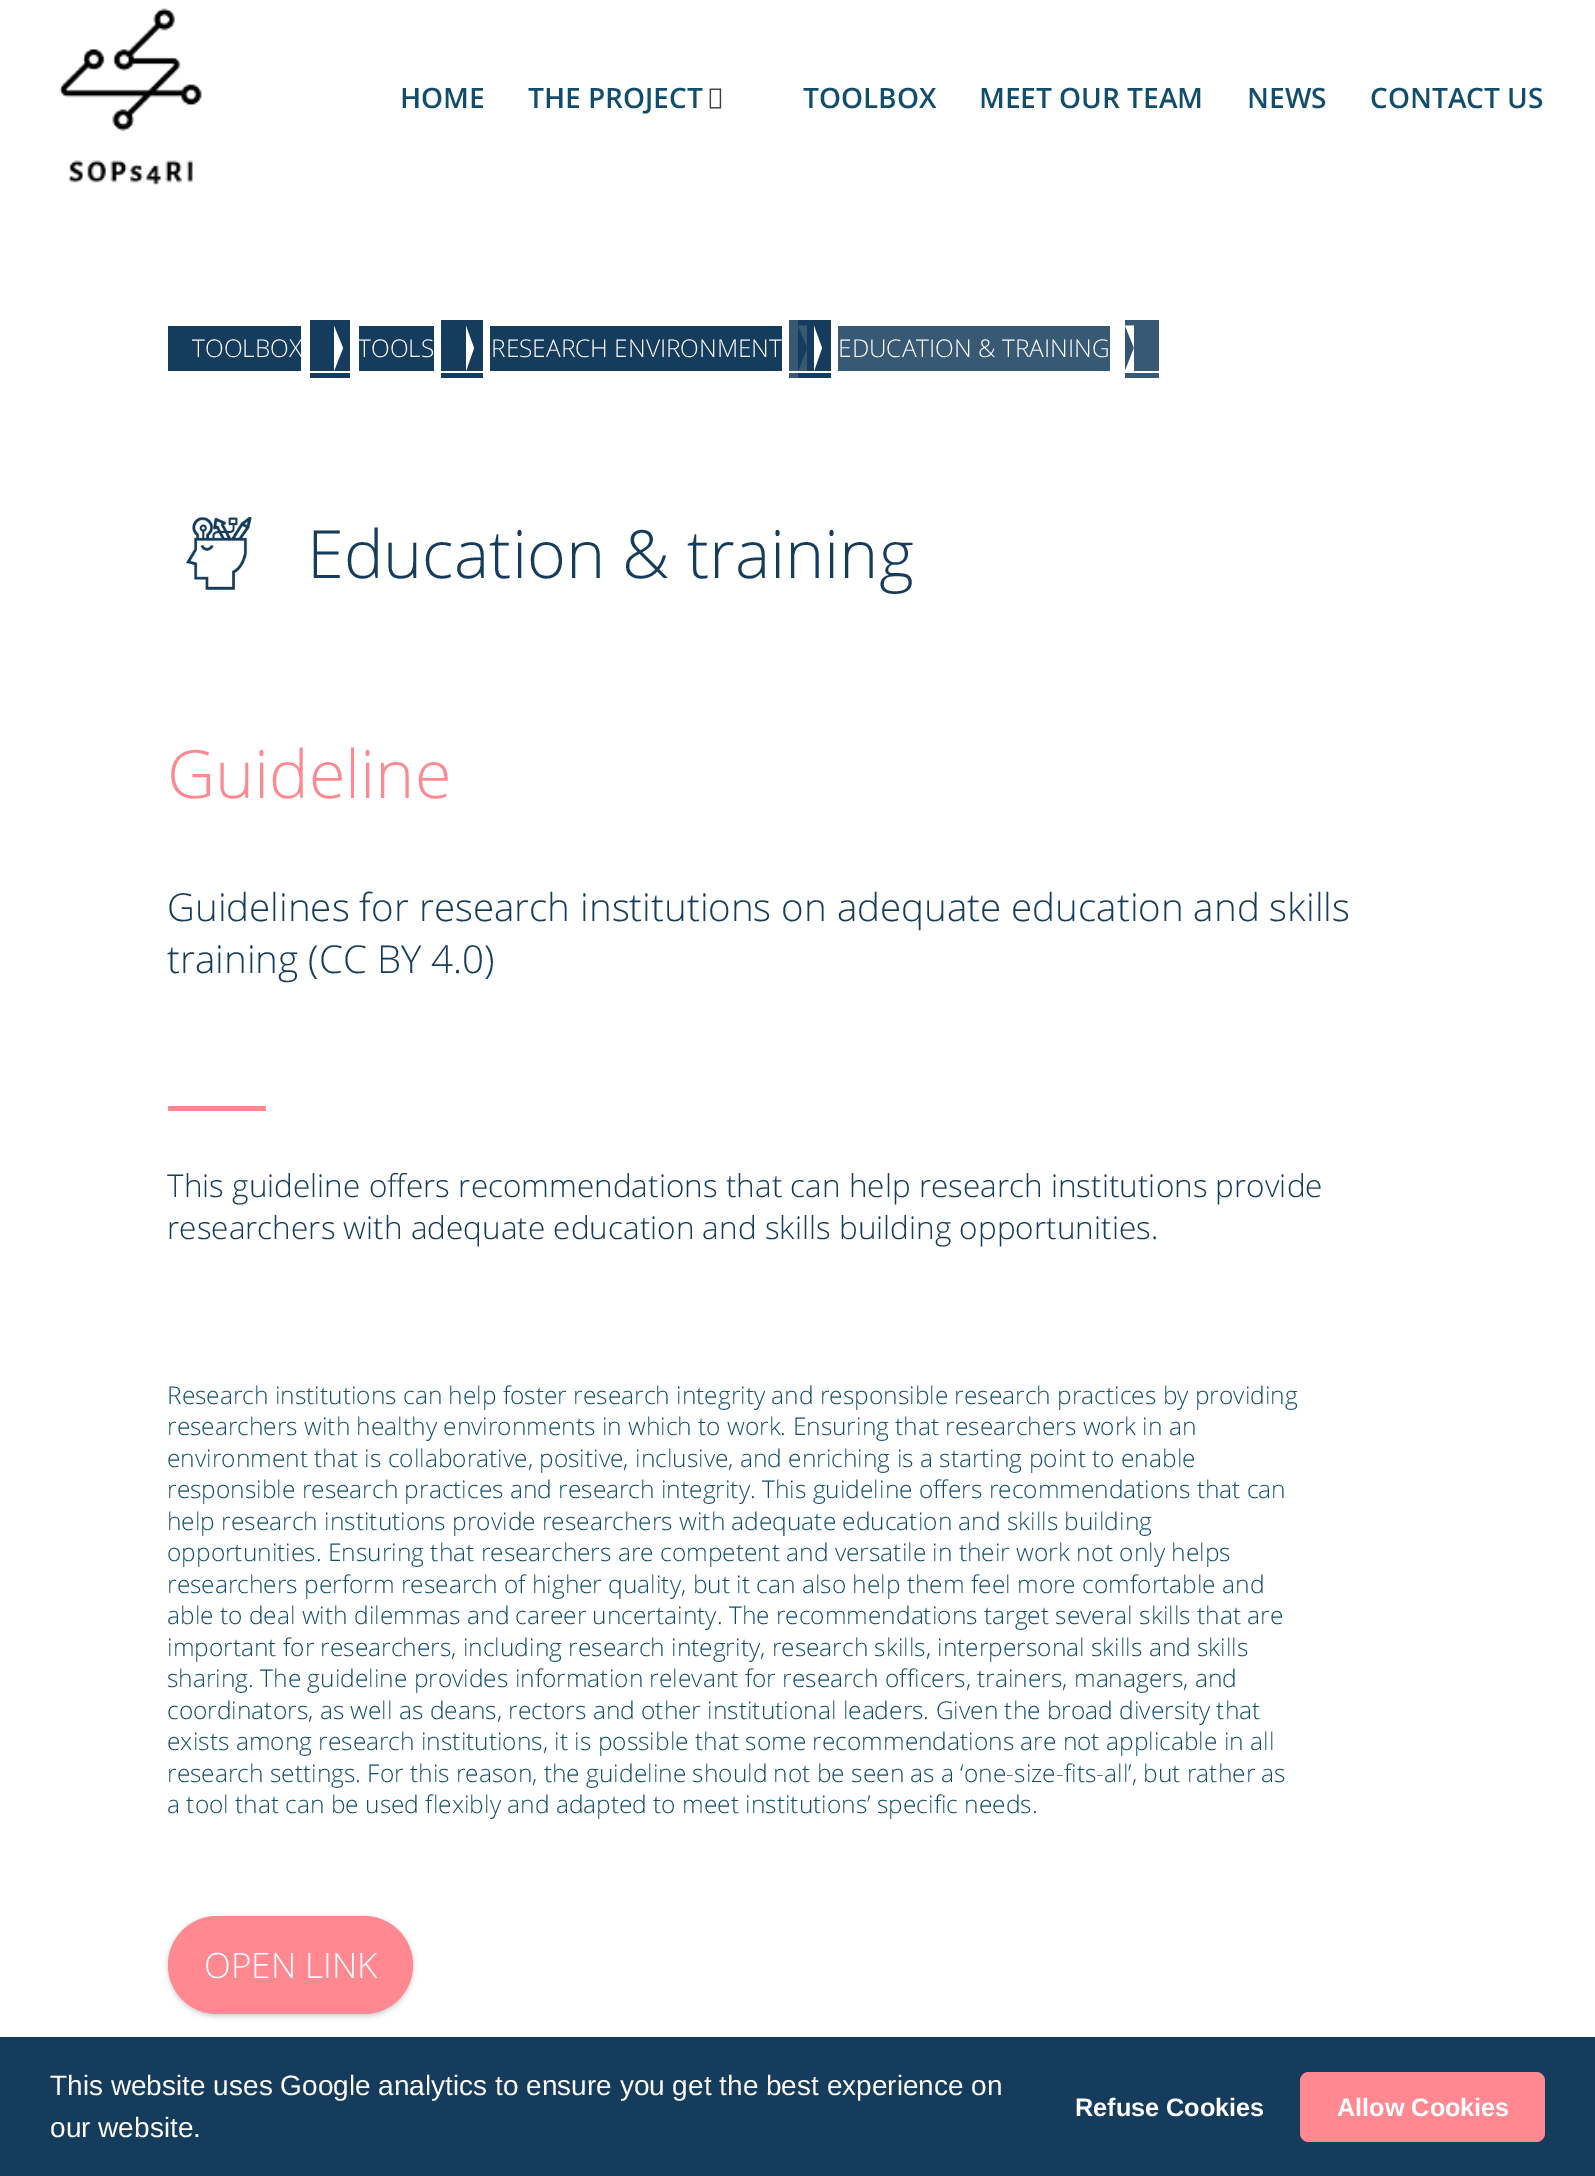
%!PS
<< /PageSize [1595 2176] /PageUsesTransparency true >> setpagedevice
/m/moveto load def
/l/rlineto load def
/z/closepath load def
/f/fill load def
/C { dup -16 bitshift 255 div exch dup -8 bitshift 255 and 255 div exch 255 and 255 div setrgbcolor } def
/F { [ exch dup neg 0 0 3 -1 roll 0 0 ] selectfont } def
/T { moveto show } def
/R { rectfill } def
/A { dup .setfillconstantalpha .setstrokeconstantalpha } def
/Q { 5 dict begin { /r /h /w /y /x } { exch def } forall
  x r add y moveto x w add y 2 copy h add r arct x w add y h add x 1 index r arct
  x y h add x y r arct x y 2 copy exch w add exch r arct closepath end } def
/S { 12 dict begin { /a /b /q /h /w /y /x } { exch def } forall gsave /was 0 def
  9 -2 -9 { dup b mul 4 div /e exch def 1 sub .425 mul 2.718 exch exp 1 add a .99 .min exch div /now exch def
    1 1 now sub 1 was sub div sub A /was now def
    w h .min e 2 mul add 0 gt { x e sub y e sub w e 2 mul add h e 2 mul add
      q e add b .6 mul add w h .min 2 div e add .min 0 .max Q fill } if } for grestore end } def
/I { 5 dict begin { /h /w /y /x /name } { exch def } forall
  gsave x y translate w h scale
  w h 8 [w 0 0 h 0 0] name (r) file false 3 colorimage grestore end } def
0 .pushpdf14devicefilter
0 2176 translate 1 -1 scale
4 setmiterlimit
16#FFFFFF C
0 0 1595 2176 R
16#385974 C
789 320 9 58 R
(1.rgb) 59 8 143 178 I
/OpenSans-SemiBold 28 F
16#114E6D C
(HOME) 400 108 T
(THE PROJECT) 528 108 T
(2.rgb) 709 88 13 21 I
(TOOLBOX) 803 108 T
(MEET OUR TEAM) 979 108 T
(NEWS) 1247 108 T
(CONTACT US) 1370 108 T
16#153C5C C
168 326 133 45 R
/OpenSans-Light 24.5 F
16#FFFFFF C
(TOOLBOX) 192 357 T
16#153C5C C
310 320 40 58 R
359 326 75 45 R
441 320 42 58 R
16#FFFFFF C
334 371 m 0 -45 l 9 22 l z f
(TOOLS) 358 357 T
16#153C5C C
490 326 292 45 R
798 320 33 58 R
16#FFFFFF C
466 371 m 0 -45 l 8 22 l z f
(RESEARCH ENVIRONMENT) 491 357 T
16#385974 C
798 325.5 m 9 0 l 0 22.5 l z 807 371 m -9 0 l 9 -23 l z f
16#153C5C C
798 371 m 0 -45 l 9 22 l z f
16#385974 C
838 326 272 45 R
1125 320 34 58 R
16#FFFFFF C
814 371 m 0 -45 l 8 22 l z f
(EDUCATION & TRAINING) 838 357 T
1125 325.5 m 9 0 l 0 22.5 l z 1134 371 m -9 0 l 9 -23 l z f
0.09 A
16#153C5C C
1125 371 m 0 -45 l 9 22 l z f
1 A
16#FFFFFF C
310 371 849 2 R
(3.rgb) 186 517 66 73 I
/OpenSans-Light 66.5 F
16#153C5C C
(Education & training) 307 578 T
16#FF8891 C
(Guideline) 167 798 T
/OpenSans-Light 38.5 F
16#153C5C C
(Guidelines for research institutions on adequate education and skills) 167 921 T
(training \(CC BY 4.0\)) 167 973 T
16#FF8891 C
168 1106 98 5 R
/OpenSans-Light 31.5 F
16#153C5C C
(This guideline offers recommendations that can help research institutions provide) 167 1197 T
(researchers with adequate education and skills building opportunities.) 167 1239 T
/OpenSans-Light 24.5 F
16#114E6D C
(Research institutions can help foster research integrity and responsible research practices by providing) 167 1404 T
(researchers with healthy environments in which to work. Ensuring that researchers work in an) 167 1435 T
(environment that is collaborative, positive, inclusive, and enriching is a starting point to enable) 167 1467 T
(responsible research practices and research integrity. This guideline offers recommendations that can) 167 1498 T
(help research institutions provide researchers with adequate education and skills building) 167 1530 T
(opportunities. Ensuring that researchers are competent and versatile in their work not only helps) 167 1561 T
(researchers perform research of higher quality, but it can also help them feel more comfortable and) 167 1593 T
(able to deal with dilemmas and career uncertainty. The recommendations target several skills that are) 167 1624 T
(important for researchers, including research integrity, research skills, interpersonal skills and skills) 167 1656 T
(sharing. The guideline provides information relevant for research officers, trainers, managers, and) 167 1687 T
(coordinators, as well as deans, rectors and other institutional leaders. Given the broad diversity that) 167 1719 T
(exists among research institutions, it is possible that some recommendations are not applicable in all) 167 1750 T
(research settings. For this reason, the guideline should not be seen as a ‘one-size-fits-all’, but rather as) 167 1782 T
(a tool that can be used flexibly and adapted to meet institutions’ specific needs.) 167 1813 T
16#000000 C
168 1918 245 98 49 2.5 .2 S
16#FF8891 C
168 1916 245 98 49 Q f
/OpenSans-Light 35 F
16#FFFFFF C
(OPEN LINK) 204 1978 T
16#153C5C C
0 2037 1595 139 R
/LiberationSans-Regular 28 F
16#FFFFFF C
(This website uses Google analytics to ensure you get the best experience on) 50 2095 T
(our website.) 50 2137 T
/LiberationSans-Bold 25.25 F
(Refuse Cookies) 1075 2116 T
16#FF8891 C
1300 2072 245 70 9 Q f
16#FFFFFF C
(Allow Cookies) 1337 2116 T
.poppdf14devicefilter showpage
